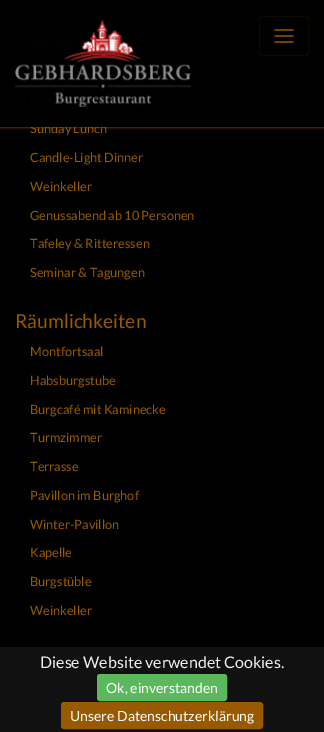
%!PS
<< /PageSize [324 732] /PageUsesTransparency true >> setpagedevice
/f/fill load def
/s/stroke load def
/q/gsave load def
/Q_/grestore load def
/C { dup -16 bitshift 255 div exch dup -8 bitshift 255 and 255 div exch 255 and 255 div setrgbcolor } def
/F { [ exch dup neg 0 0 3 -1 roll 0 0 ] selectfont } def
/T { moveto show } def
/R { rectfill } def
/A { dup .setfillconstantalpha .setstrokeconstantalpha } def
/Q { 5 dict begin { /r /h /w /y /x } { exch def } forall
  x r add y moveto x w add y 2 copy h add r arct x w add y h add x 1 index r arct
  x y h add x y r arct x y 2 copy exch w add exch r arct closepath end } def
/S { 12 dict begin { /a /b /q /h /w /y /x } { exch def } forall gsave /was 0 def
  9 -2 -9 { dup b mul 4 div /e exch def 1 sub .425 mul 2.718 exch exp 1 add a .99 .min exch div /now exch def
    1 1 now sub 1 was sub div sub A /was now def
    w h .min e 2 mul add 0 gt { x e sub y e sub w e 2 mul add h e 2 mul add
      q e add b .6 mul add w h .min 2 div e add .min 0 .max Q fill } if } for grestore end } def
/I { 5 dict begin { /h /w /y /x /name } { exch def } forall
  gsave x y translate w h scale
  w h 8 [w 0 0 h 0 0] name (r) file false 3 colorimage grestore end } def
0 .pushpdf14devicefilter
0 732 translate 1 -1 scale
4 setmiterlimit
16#000000 C
0 0 324 732 R
q
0 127 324 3 rectclip
16#975A00 C
0 0 324 127 0 1.5 1 S
Q_
/Lato-Regular 12.75 F
16#975A00 C
(Sunday Lunch) 30 133 T
0.96 A
16#000000 C
30 123 76 4 R
1 A
(1.rgb) 15 20 176 87 I
(2.rgb) 274 29 20 14 I
16#0F0900 C
259.5 16.5 49 39 3.5 Q s
16#975A00 C
(Candle-Light Dinner) 30 162 T
(Weinkeller) 30 191 T
(Genussabend ab 10 Personen) 30 220 T
(Tafeley & Ritteressen) 30 248 T
(Seminar & Tagungen) 30 277 T
/Lato-Regular 19.25 F
(Räumlichkeiten) 15 328 T
/Lato-Regular 12.75 F
(Montfortsaal) 30 356 T
(Habsburgstube) 30 385 T
(Burgcafé mit Kaminecke) 30 414 T
(Turmzimmer) 30 442 T
(Terrasse) 30 471 T
(Pavillon im Burghof) 30 500 T
(Winter-Pavillon) 30 529 T
(Kapelle) 30 557 T
(Burgstüble) 30 586 T
(Weinkeller) 30 615 T
16#111111 C
0 647 324 85 R
/Lato-Regular 16 F
16#EEEEEE C
(Diese Website verwendet Cookies.) 40 668 T
16#5CB85C C
97.5 674.5 129 26 2.5 Q q f Q_
s
/Lato-Regular 14 F
16#FFFFFF C
(Ok, einverstanden) 106 693 T
16#975A00 C
61.5 702.5 201 26 2.5 Q q f Q_
s
16#FFFFFF C
(Unsere Datenschutzerklärung) 70 721 T
.poppdf14devicefilter showpage
